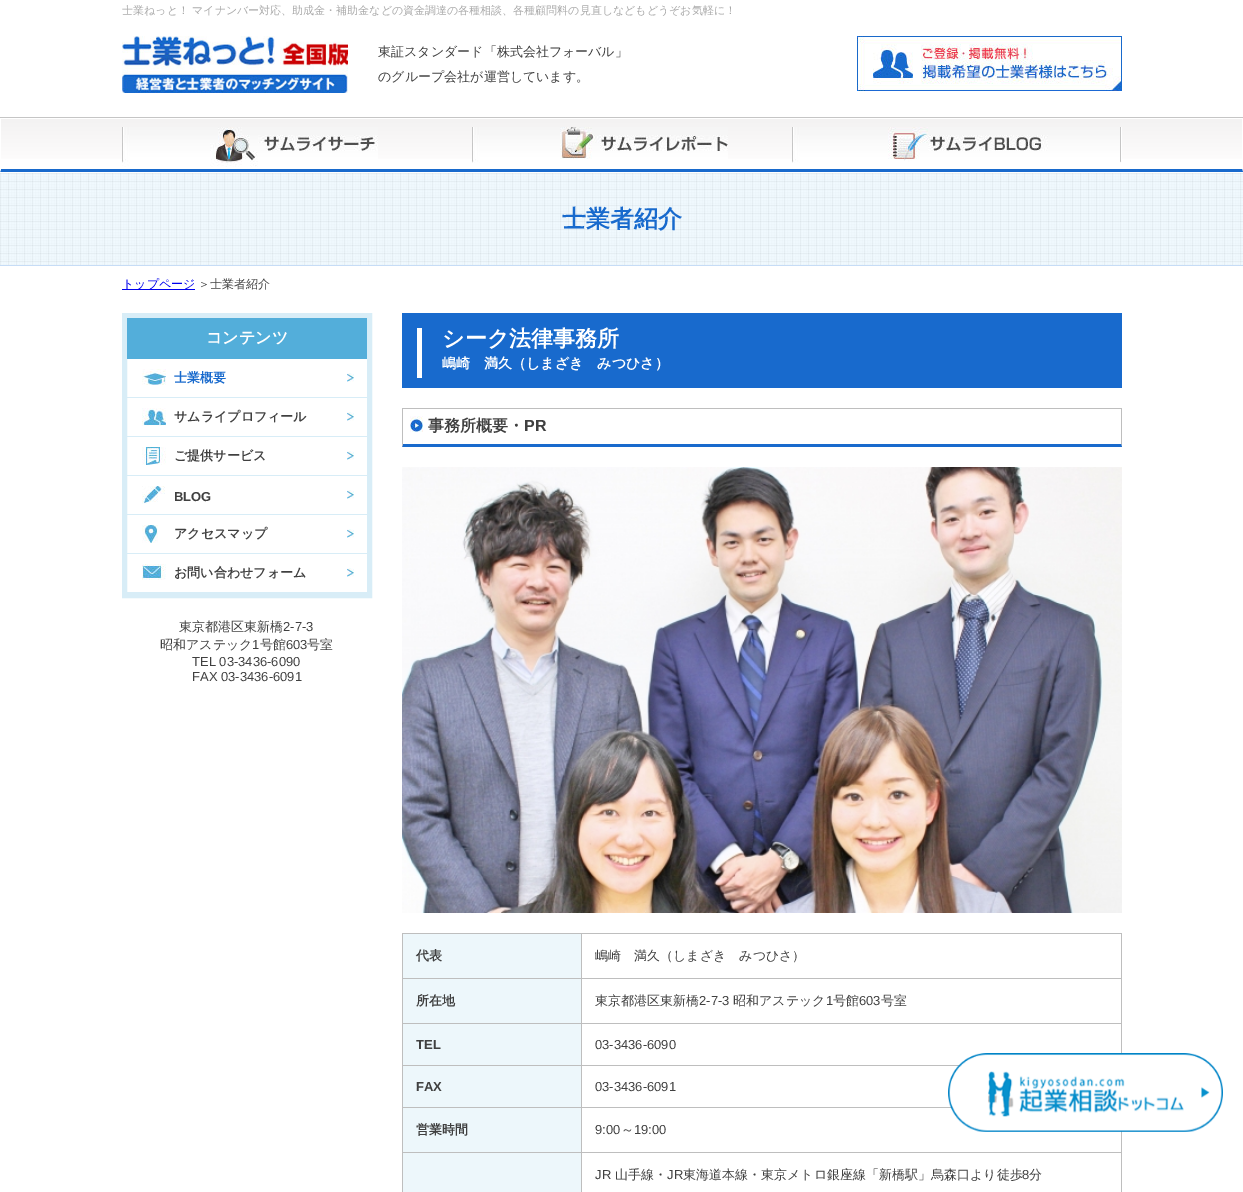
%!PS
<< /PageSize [1243 1192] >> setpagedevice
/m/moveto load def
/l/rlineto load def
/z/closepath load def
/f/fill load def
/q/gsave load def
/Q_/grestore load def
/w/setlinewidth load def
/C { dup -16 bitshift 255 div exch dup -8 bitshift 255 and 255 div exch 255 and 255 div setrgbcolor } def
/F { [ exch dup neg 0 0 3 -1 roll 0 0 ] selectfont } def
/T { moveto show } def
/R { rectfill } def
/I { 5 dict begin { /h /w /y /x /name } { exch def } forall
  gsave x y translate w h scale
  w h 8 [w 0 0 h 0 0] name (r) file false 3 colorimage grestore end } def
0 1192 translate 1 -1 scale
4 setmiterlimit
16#FFFFFF C
0 0 1243 1192 R
16#C5C5C5 C
0 117 1243 1 R
/WenQuanYiZenHei-Medium 11 F
16#AAAAAA C
(士業ねっと！ マイナンバー対応、助成金・補助金などの資金調達の各種相談、各種顧問料の見直しなどもどうぞお気軽に！) 122 14 T
(1.rgb) 122 36 226 57 I
/WenQuanYiZenHei-Medium 13 F
16#404040 C
(東証スタンダード「株式会社フォーバル」) 378 56 T
(のグループ会社が運営しています。) 378 81 T
(2.rgb) 857 36 265 55 I
q 1 119 m 1241 0 l 0 40 l -1241 0 l z clip newpath
<< /ShadingType 2 /ColorSpace /DeviceRGB /Coords [622 119 622 169] /Extend [true true] /Function << /FunctionType 2 /Domain [0 1] /C0 [.953 .949 .949] /C1 [1 1 1] /N 1 >> >> shfill Q_
16#186ACD C
1243 172 m -1243 0 l 1 -3 l 1241 0 l z f
16#FFFFFF C
0 172 m 0 -54 l 1 1 l 0 50 l z f
(3.rgb) 122 127 256 40 I
(4.rgb) 472 127 256 36 I
(5.rgb) 792 127 330 36 I
(6.rgb) 0 173 1243 92 I
16#C6DCF6 C
0 265 1243 1 R
/WenQuanYiZenHei-Bold 24 F
16#186ACD C
(士業者紹介) 562 227 T
16#0000EE C
122 289 73 1 R
/WenQuanYiZenHei-Medium 12 F
(トップページ) 122 288 T
16#404040 C
(＞士業者紹介) 198 288 T
16#D8EDF7 C
5 w
124.5 315.5 245 280 rectstroke
16#53AEDA C
127 318 240 41 R
/WenQuanYiZenHei-Bold 16 F
16#FFFFFF C
(コンテンツ) 206 343 T
16#D8EDF7 C
127 397 240 1 R
(7.rgb) 347 373 7 9 I
(8.rgb) 142 369 24 16 I
/WenQuanYiZenHei-Bold 13 F
16#186ACD C
(士業概要) 174 382 T
16#D8EDF7 C
127 436 240 1 R
(7.rgb) 347 412 7 9 I
(9.rgb) 142 408 24 18 I
16#404040 C
(サムライプロフィール) 174 421 T
16#D8EDF7 C
127 475 240 1 R
(7.rgb) 347 451 7 9 I
(10.rgb) 142 447 24 18 I
16#404040 C
(ご提供サービス) 174 460 T
16#D8EDF7 C
127 514 240 1 R
(7.rgb) 347 490 7 9 I
(11.rgb) 142 486 23 18 I
/LiberationSans-Bold 13 F
16#404040 C
(BLOG) 174 501 T
16#D8EDF7 C
127 553 240 1 R
(7.rgb) 347 529 7 9 I
(12.rgb) 142 525 16 18 I
/WenQuanYiZenHei-Bold 13 F
16#404040 C
(アクセスマップ) 174 538 T
16#D8EDF7 C
127 592 240 1 R
(7.rgb) 347 568 7 9 I
(13.rgb) 142 564 24 16 I
16#404040 C
(お問い合わせフォーム) 174 577 T
/WenQuanYiZenHei-Medium 13 F
(東京都港区東新橋) 179 631 T
/LiberationSans-Regular 13 F
(2-7-3) 283 631 T
/WenQuanYiZenHei-Medium 13 F
(昭和アステック) 160 649 T
/LiberationSans-Regular 13 F
(1) 252 649 T
/WenQuanYiZenHei-Medium 13 F
(号館) 260 649 T
/LiberationSans-Regular 13 F
(603) 286 649 T
/WenQuanYiZenHei-Medium 13 F
(号室) 307 649 T
/LiberationSans-Regular 13 F
(TEL 03-3436-6090) 192 666 T
(FAX 03-3436-6091) 192 681 T
16#186ACD C
402 313 720 75 R
16#FFFFFF C
417 328 5 50 R
/WenQuanYiZenHei-Bold 22 F
(シーク法律事務所) 442 346 T
/WenQuanYiZenHei-Bold 14 F
(嶋崎　満久（しまざき　みつひさ）) 442 368 T
16#BEBEBE C
402 408 720 1 R
1122 408 m 0 39 l -1 -3 l 0 -35 l z f
16#186ACD C
1122 447 m -720 0 l 1 -3 l 718 0 l z f
16#BEBEBE C
402 447 m 0 -39 l 1 1 l 0 35 l z f
(14.rgb) 410 416 13 16 I
/WenQuanYiZenHei-Bold 16 F
16#404040 C
(事務所概要・) 428 431 T
/LiberationSans-Bold 16 F
(PR) 524 431 T
(15.rgb) 402 467 720 446 I
16#BEBEBE C
402 933 720 1 R
402 933 1 259 R
16#EDF7FB C
403 934 178 44 R
16#BEBEBE C
581 934 1 258 R
403 978 179 1 R
/WenQuanYiZenHei-Bold 13 F
16#404040 C
(代表) 416 960 T
16#BEBEBE C
1121 934 1 119 R
582 978 540 1 R
/WenQuanYiZenHei-Medium 13 F
16#404040 C
(嶋崎　満久（しまざき　みつひさ）) 595 960 T
16#EDF7FB C
403 979 178 44 R
16#BEBEBE C
403 1023 719 1 R
/WenQuanYiZenHei-Bold 13 F
16#404040 C
(所在地) 416 1005 T
/WenQuanYiZenHei-Medium 13 F
(東京都港区東新橋) 595 1005 T
/LiberationSans-Regular 13 F
(2-7-3) 699 1005 T
/WenQuanYiZenHei-Medium 13 F
(昭和アステック) 733 1005 T
/LiberationSans-Regular 13 F
(1) 826 1005 T
/WenQuanYiZenHei-Medium 13 F
(号館) 833 1005 T
/LiberationSans-Regular 13 F
(603) 859 1005 T
/WenQuanYiZenHei-Medium 13 F
(号室) 881 1005 T
16#EDF7FB C
403 1024 178 41 R
16#BEBEBE C
403 1065 557 1 R
/LiberationSans-Bold 13 F
16#404040 C
(TEL) 416 1049 T
/LiberationSans-Regular 13 F
(03-3436-6090) 595 1049 T
16#EDF7FB C
403 1066 178 41 R
16#BEBEBE C
403 1107 549 1 R
/LiberationSans-Bold 13 F
16#404040 C
(FAX) 416 1091 T
/LiberationSans-Regular 13 F
(03-3436-6091) 595 1091 T
16#EDF7FB C
403 1108 178 44 R
16#BEBEBE C
403 1152 179 1 R
/WenQuanYiZenHei-Bold 13 F
16#404040 C
(営業時間) 416 1134 T
16#BEBEBE C
1121 1131 1 61 R
582 1152 540 1 R
/LiberationSans-Regular 13 F
16#404040 C
(9:00) 595 1134 T
/WenQuanYiZenHei-Medium 13 F
(～) 621 1134 T
/LiberationSans-Regular 13 F
(19:00) 634 1134 T
16#EDF7FB C
403 1153 178 39 R
16#404040 C
(JR) 595 1179 T
/WenQuanYiZenHei-Medium 13 F
(山手線・) 615 1179 T
/LiberationSans-Regular 13 F
(JR) 667 1179 T
/WenQuanYiZenHei-Medium 13 F
(東海道本線・東京メトロ銀座線「新橋駅」烏森口より徒歩) 683 1179 T
/LiberationSans-Regular 13 F
(8) 1022 1179 T
/WenQuanYiZenHei-Medium 13 F
(分) 1029 1179 T
(16.rgb) 948 1053 275 79 I
showpage
